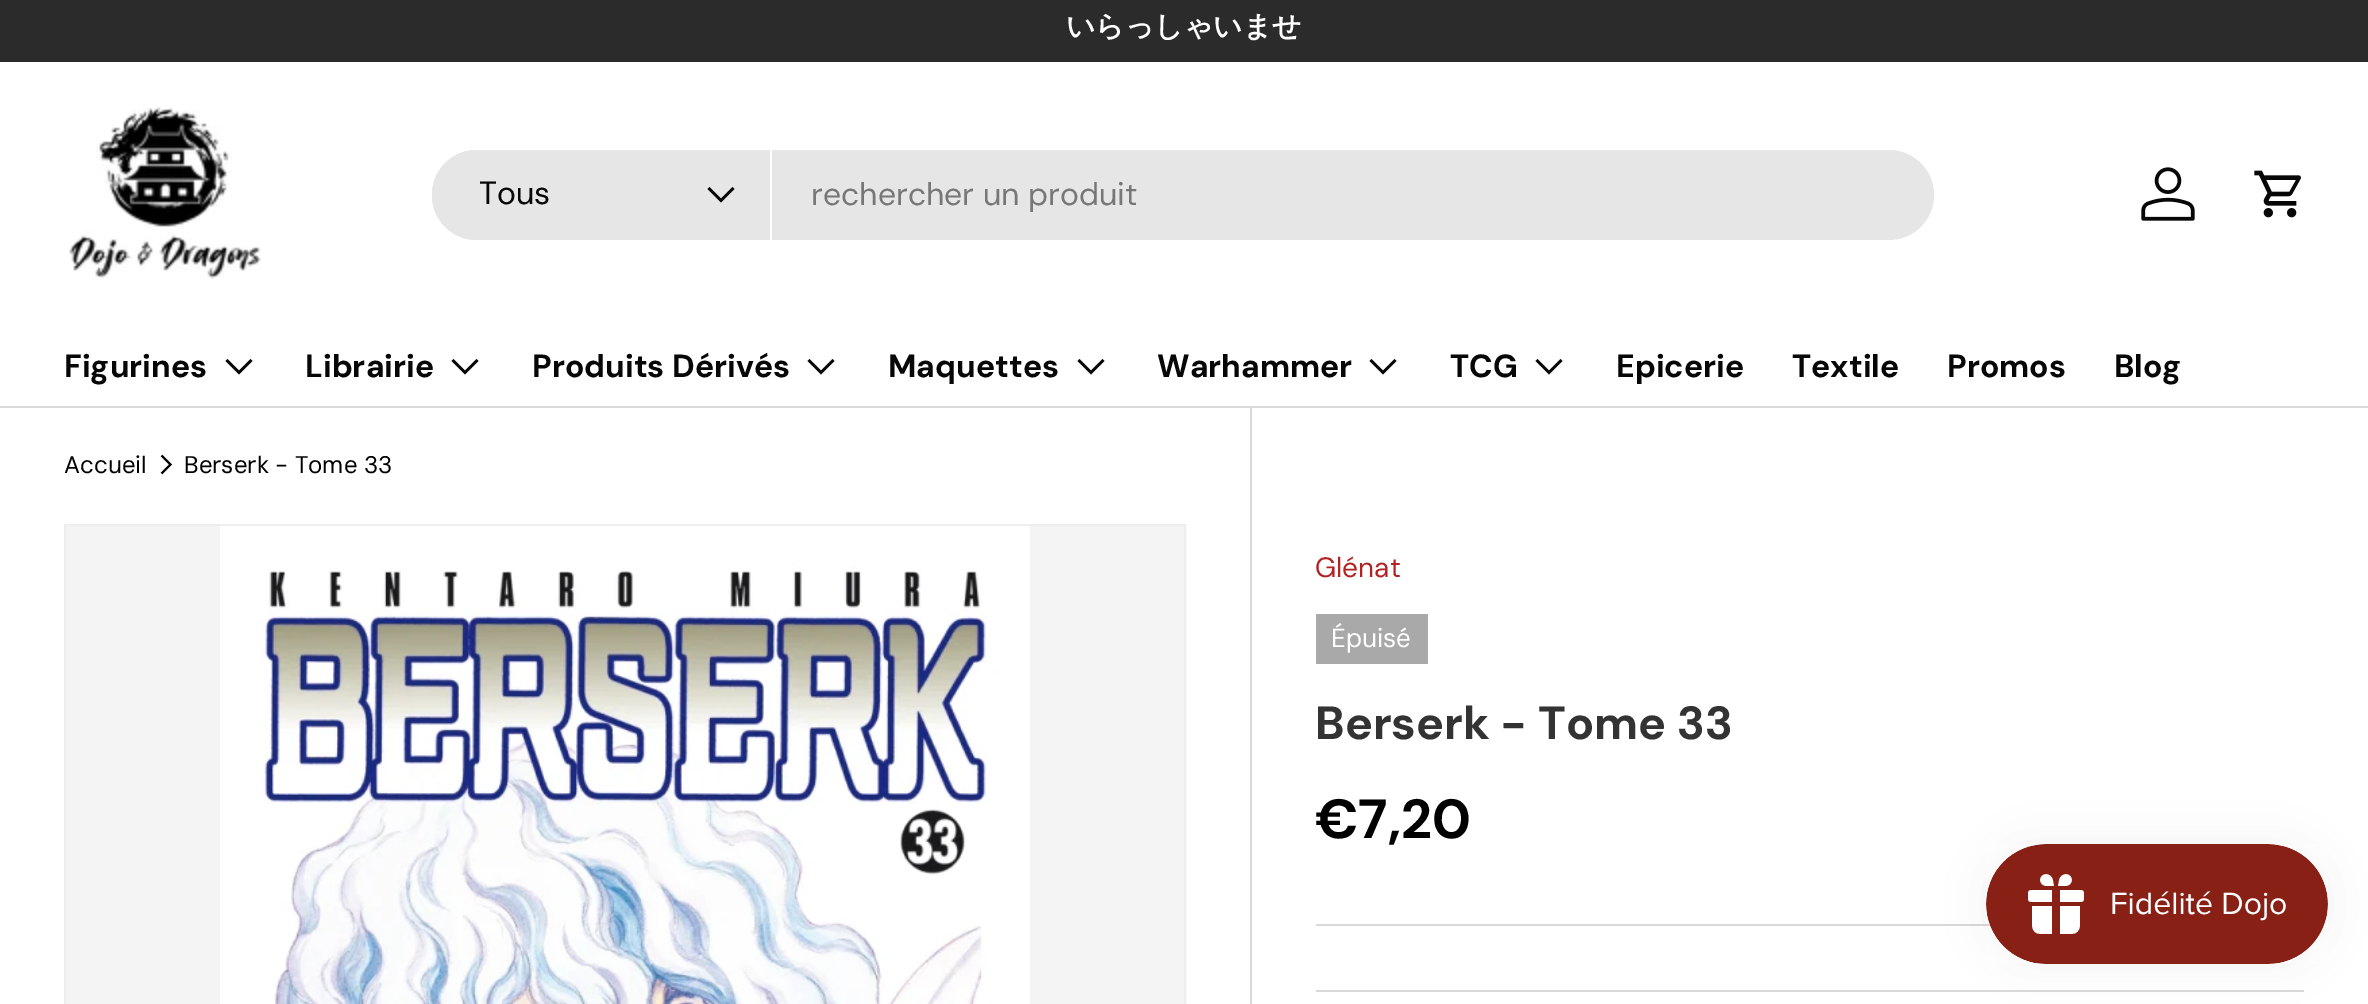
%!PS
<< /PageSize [2368 1004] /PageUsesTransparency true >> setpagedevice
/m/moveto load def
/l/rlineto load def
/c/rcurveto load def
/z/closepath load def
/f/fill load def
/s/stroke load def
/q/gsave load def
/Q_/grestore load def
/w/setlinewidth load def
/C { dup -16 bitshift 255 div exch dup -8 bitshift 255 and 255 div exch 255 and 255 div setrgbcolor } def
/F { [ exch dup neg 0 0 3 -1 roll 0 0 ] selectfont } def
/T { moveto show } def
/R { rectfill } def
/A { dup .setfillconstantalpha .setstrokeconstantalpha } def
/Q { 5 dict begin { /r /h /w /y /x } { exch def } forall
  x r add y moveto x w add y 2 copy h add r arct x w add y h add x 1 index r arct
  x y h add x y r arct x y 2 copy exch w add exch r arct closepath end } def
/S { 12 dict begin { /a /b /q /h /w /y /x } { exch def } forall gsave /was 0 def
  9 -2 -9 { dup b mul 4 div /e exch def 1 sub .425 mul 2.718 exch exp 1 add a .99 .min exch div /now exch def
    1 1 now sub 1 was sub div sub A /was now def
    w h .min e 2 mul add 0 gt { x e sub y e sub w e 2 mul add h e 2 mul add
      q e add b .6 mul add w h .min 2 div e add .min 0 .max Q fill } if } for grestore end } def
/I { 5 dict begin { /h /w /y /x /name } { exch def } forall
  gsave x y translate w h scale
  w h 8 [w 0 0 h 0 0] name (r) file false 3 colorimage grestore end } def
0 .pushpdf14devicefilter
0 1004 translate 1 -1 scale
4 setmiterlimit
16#FFFFFF C
0 0 2368 1004 R
16#2A2B2A C
0 0 2368 62 R
/WenQuanYiZenHei-Bold 28.75 F
16#FFFFFF C
(いらっしゃいませ) 1066 36 T
16#DADADA C
0 406 2368 2 R
(1.rgb) 69 107 192 172 I
16#E6E6E6 C
432 150 1502 90 45 Q f
477 150 m 295 0 l 0 90 l -295 0 l -25 0 -45 -20 -45 -45 c 0 -25 20 -45 45 -45 c z f
16#FFFFFF C
770 150 2 90 R
/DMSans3-Regular 32 F
16#070707 C
(Tous) 479 204 T
2.5 w
733.5 188 m -12.5 12.5 l -12.5 -12.5 l s
16#777777 C
(rechercher un produit) 811 205 T
(2.rgb) 2141 167 54 54 I
(3.rgb) 2254 170 47 48 I
/DMSans3-Bold 32 F
16#070707 C
(Figurines) 64 377 T
251.5 360 m -12.5 12.5 l -12.5 -12.5 l s
(Librairie) 305 377 T
477.5 360 m -12.5 12.5 l -12.5 -12.5 l s
(Produits Dérivés) 532 377 T
833.5 360 m -12.5 12.5 l -12.5 -12.5 l s
(Maquettes) 888 377 T
1103.5 360 m -12.5 12.5 l -12.5 -12.5 l s
(Warhammer) 1157 377 T
1395.5 360 m -12.5 12.5 l -12.5 -12.5 l s
(TCG) 1450 377 T
1561.5 360 m -12.5 12.5 l -12.5 -12.5 l s
(Epicerie) 1616 377 T
(Textile) 1792 377 T
(Promos) 1947 377 T
(Blog) 2114 377 T
/DMSans-Regular 24 F
16#000000 C
(Accueil) 64 473 T
1.8 w
161.5 455.5 m 9 9 l -9 9 l s
(Berserk - Tome 33) 184 473 T
16#F4F4F4 C
65 525 m 1120 0 l 0 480 l -1120 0 l z q f Q_
16#EEEEEE C
2 w
s
(4.rgb) 220 526 810 478 I
16#D9D9D9 C
1250 408 2 596 R
/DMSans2-Regular 28 F
16#B22222 C
(Glénat) 1315 577 T
16#A9A9A9 C
1316 614 112 50 R
/DMSans-Regular 26 F
16#FFFFFF C
(Épuisé) 1331 647 T
/DMSans-Bold 46.5 F
16#333333 C
(Berserk - Tome 33) 1315 739 T
/DMSans2-Bold 55 F
16#000000 C
(€7,20) 1315 838 T
16#D9D9D9 C
1316 924 675 2 R
1316 990 988 2 R
16#000000 C
1986 844 342 120 60 25 .05 S
(5.rgb) 1986 844 342 120 I
.poppdf14devicefilter showpage
